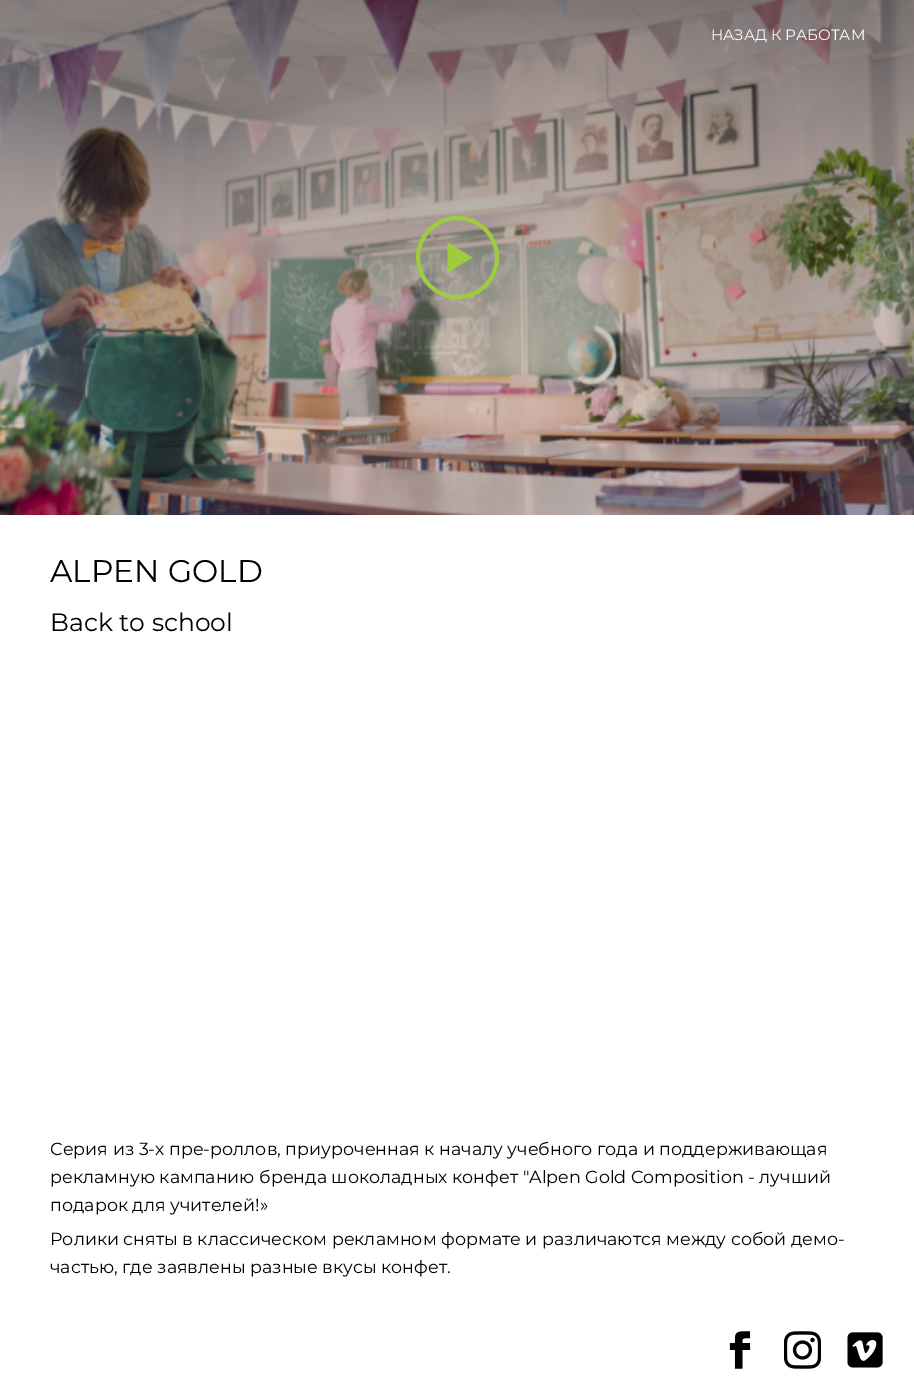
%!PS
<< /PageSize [914 1400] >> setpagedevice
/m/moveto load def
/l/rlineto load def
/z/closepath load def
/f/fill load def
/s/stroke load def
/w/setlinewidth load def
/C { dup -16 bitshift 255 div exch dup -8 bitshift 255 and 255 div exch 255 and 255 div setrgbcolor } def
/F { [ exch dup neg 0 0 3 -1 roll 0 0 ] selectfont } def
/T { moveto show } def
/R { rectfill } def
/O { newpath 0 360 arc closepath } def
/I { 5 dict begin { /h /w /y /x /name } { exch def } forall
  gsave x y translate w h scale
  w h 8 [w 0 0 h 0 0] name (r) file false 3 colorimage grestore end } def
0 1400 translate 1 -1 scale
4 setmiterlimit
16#FFFFFF C
0 0 914 1400 R
(1.rgb) 0 0 914 515 I
/Montserrat-Regular 15 F
(НАЗАД К РАБОТАМ) 711 40 T
16#9FCB3E C
4 w
457.5 257.5 39.5 O s
447.5 272.5 m 0 -30 l 25 15 l z f
/Montserrat-Regular 31.25 F
16#000000 C
(ALPEN GOLD) 50 582 T
/Montserrat-Regular 25 F
(Back to school) 50 631 T
/Montserrat-Regular 17.5 F
(Серия из 3-х пре-роллов, приуроченная к началу учебного года и поддерживающая) 50 1155 T
(рекламную кампанию бренда шоколадных конфет "Alpen Gold Composition - лучший) 50 1183 T
(подарок для учителей!») 50 1211 T
(Ролики сняты в классическом рекламном формате и различаются между собой демо-) 50 1245 T
(частью, где заявлены разные вкусы конфет.) 50 1273 T
(2.rgb) 729 1331 22 38 I
(3.rgb) 784 1331 37 38 I
(4.rgb) 847 1332 36 36 I
showpage
